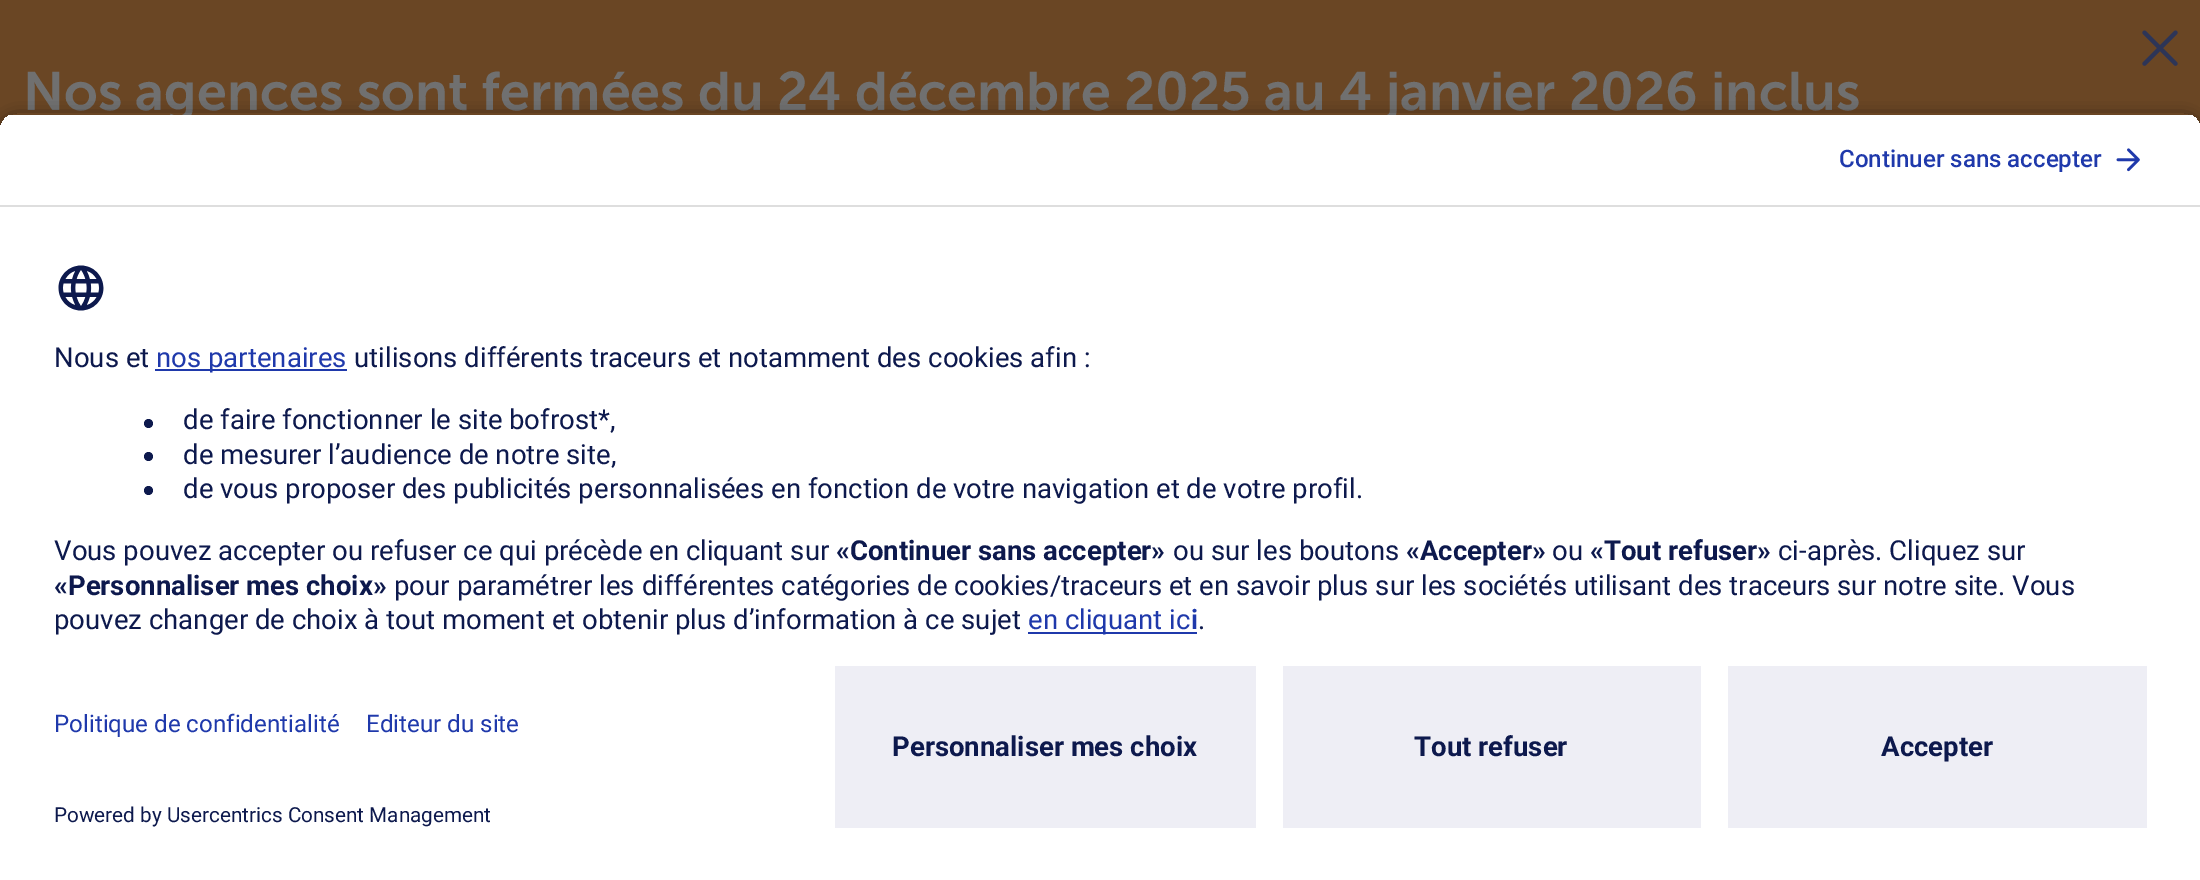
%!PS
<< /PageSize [2200 880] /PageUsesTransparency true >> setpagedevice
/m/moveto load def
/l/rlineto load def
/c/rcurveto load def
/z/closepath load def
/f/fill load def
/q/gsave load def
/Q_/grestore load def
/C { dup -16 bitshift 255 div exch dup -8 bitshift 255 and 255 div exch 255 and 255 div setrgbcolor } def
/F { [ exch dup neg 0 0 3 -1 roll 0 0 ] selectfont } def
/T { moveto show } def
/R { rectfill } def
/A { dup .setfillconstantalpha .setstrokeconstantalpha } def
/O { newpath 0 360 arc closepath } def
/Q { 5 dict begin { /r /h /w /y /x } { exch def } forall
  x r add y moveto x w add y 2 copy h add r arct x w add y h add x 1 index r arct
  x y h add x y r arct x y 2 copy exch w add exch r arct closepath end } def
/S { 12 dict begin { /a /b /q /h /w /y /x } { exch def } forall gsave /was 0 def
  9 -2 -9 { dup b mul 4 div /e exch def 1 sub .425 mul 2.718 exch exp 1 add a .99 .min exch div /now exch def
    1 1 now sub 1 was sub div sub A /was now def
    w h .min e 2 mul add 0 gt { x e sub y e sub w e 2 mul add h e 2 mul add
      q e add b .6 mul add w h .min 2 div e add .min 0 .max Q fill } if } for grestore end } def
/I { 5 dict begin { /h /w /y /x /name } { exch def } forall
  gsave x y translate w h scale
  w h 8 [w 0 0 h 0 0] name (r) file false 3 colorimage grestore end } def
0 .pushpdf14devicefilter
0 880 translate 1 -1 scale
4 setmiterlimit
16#6A4624 C
0 0 2200 880 R
(1.rgb) 2142 30 36 36 I
/MuseoSans-SemiBold 54 F
16#707070 C
(Nos agences sont fermées du 24 décembre 2025 au 4 janvier 2026 inclus) 23 110 T
q
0 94 m 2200 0 l 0 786 l -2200 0 l z 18 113 m 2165 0 l 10 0 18 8 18 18 c 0 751 l -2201 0 l 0 -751 l 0 -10 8 -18 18 -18 c z eoclip newpath
16#000000 C
0 119 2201 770 18 8 .8 S
Q_
q
18 113 m 2165 0 l 10 0 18 8 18 18 c 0 517 l -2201 0 l 0 -517 l 0 -10 8 -18 18 -18 c z clip newpath
16#FFFFFF C
0 115 2200 90 R
Q_
16#DEDEDE C
0 205 2200 2 R
/Roboto-Medium 24.1 F
16#1F39AB C
(Continuer sans accepter) 1839 167 T
(2.rgb) 2116 148 24 24 I
16#FFFFFF C
0 207 2200 673 R
(3.rgb) 58 265 46 46 I
/Roboto-Regular 27.55 F
16#0D194D C
(Nous et) 54 367 T
16#1F39AB C
155 369 192 2 R
(nos partenaires) 156 367 T
16#0D194D C
(utilisons différents traceurs et notamment des cookies afin :) 354 367 T
148.5 423.5 4.5 O f
(de faire fonctionner le site bofrost*,) 183 429 T
148.5 456.5 4.5 O f
(de mesurer l’audience de notre site,) 183 464 T
148.5 490.5 4.5 O f
(de vous proposer des publicités personnalisées en fonction de votre navigation et de votre profil.) 183 498 T
(Vous pouvez accepter ou refuser ce qui précède en cliquant sur) 54 560 T
/Roboto-Bold 27.55 F
(«Continuer sans accepter») 836 560 T
/Roboto-Regular 27.55 F
(ou sur les boutons) 1173 560 T
/Roboto-Bold 27.55 F
(«Accepter») 1406 560 T
/Roboto-Regular 27.55 F
(ou) 1552 560 T
/Roboto-Bold 27.55 F
(«Tout refuser») 1590 560 T
/Roboto-Regular 27.55 F
(ci-après. Cliquez sur) 1778 560 T
/Roboto-Bold 27.55 F
(«Personnaliser mes choix») 54 595 T
/Roboto-Regular 27.55 F
(pour paramétrer les différentes catégories de cookies/traceurs et en savoir plus sur les sociétés utilisant des traceurs sur notre site. Vous) 394 595 T
(pouvez changer de choix à tout moment et obtenir plus d’information à ce sujet) 54 629 T
16#1F39AB C
1028 632 169 2 R
(en cliquant ic) 1028 629 T
/Roboto-SemiBold 27.55 F
(i) 1191 629 T
/Roboto-Regular 27.55 F
16#0D194D C
(.) 1198 629 T
/Roboto-Regular 24.1 F
16#1F39AB C
(Politique de confidentialité) 54 732 T
(Editeur du site) 366 732 T
/Roboto-Regular 20.7 F
16#0D194D C
(Powered by Usercentrics Consent Management) 54 822 T
16#EEEEF5 C
835 666 421 162 R
/Roboto-Bold 27.55 F
16#0D194D C
(Personnaliser mes choix) 892 756 T
16#EEEEF5 C
1283 666 418 162 R
16#0D194D C
(Tout refuser) 1414 756 T
16#EEEEF5 C
1728 666 419 162 R
16#0D194D C
(Accepter) 1881 756 T
.poppdf14devicefilter showpage
